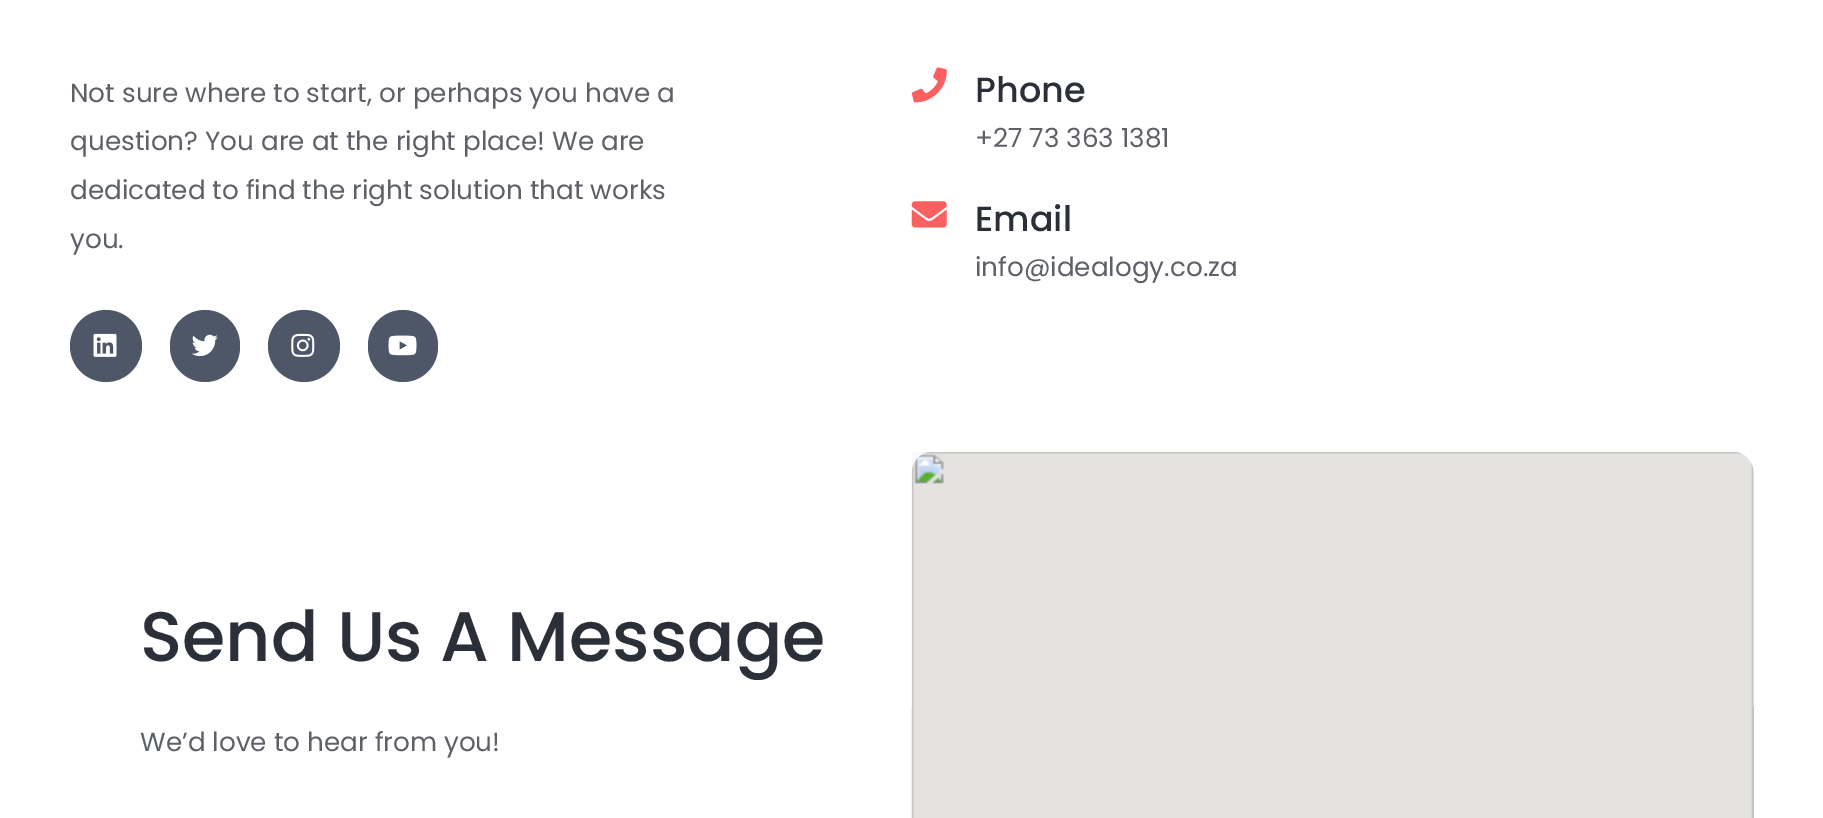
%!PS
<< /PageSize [1823 818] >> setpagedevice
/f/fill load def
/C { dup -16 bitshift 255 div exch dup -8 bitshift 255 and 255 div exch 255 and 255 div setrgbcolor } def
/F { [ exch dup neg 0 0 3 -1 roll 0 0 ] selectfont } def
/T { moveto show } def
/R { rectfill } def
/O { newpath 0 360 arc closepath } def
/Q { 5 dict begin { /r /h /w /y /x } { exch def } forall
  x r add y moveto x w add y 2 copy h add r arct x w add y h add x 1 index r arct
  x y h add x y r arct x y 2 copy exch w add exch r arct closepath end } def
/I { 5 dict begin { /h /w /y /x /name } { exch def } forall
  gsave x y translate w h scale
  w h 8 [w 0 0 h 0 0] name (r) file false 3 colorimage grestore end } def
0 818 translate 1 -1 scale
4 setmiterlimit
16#FFFFFF C
0 0 1823 818 R
/Poppins-Regular 26.25 F
16#5D6167 C
(Not sure where to start, or perhaps you have a) 70 102 T
(question? You are at the right place! We are) 70 150 T
(dedicated to find the right solution that works) 70 199 T
(you.) 70 248 T
16#4E5768 C
106 346 36 O f
(1.rgb) 93 333 24 24 I
170 310 70 72 35 Q f
(2.rgb) 191 334 27 23 I
304 346 36 O f
(3.rgb) 291 333 24 24 I
368 310 70 72 35 Q f
(4.rgb) 388 335 29 21 I
(5.rgb) 911 67 36 36 I
/Poppins-Medium 35 F
16#2B2F38 C
(Phone) 975 102 T
/Poppins-Regular 26.25 F
16#5D6167 C
(+27 73 363 1381) 975 147 T
(6.rgb) 911 201 36 27 I
/Poppins-Medium 35 F
16#2B2F38 C
(Email) 975 231 T
/Poppins-Regular 26.25 F
16#5D6167 C
(info@idealogy.co.za) 975 276 T
16#F9F9F9 C
70 452 1684 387 21 Q f
16#FFFFFF C
70 452 842 366 R
/Poppins-Medium 70 F
16#2B2F38 C
(Send Us A Message) 140 661 T
/Poppins-Regular 26.25 F
16#5D6167 C
(We’d love to hear from you!) 140 751 T
(7.rgb) 911 451 843 367 I
showpage
